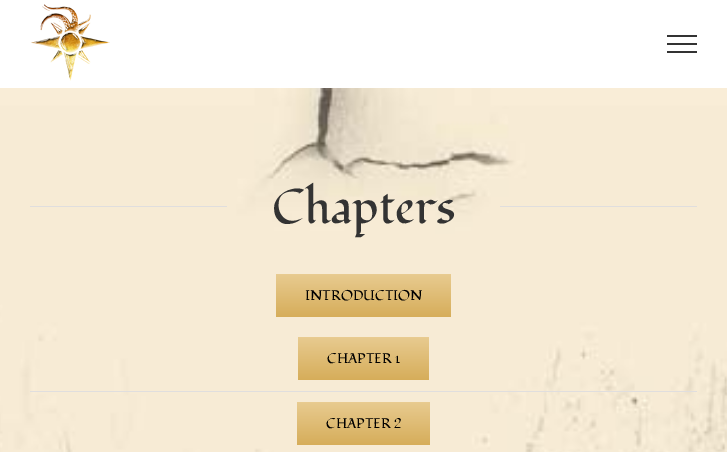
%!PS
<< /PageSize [727 452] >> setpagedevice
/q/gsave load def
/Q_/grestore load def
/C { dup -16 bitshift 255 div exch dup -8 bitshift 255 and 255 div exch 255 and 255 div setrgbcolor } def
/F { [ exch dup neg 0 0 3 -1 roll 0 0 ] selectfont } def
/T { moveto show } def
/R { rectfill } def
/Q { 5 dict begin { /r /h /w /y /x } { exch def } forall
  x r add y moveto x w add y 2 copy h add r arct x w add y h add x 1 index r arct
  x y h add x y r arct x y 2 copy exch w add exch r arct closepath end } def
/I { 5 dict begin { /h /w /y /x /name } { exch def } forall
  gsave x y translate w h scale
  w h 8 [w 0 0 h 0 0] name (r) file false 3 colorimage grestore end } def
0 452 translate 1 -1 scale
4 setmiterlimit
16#FFFFFF C
0 0 727 452 R
(1.rgb) 31 4 79 77 I
16#333333 C
667 35 30 2 R
667 43 30 2 R
667 51 30 2 R
(2.rgb) 0 88 727 364 I
16#E0DEDE C
30 206 197 1 R
/Fondamento-Regular 48 F
16#333333 C
(Chapters) 272 223 T
16#E0DEDE C
500 206 197 1 R
q 276 274 175 43 2 Q clip newpath
<< /ShadingType 2 /ColorSpace /DeviceRGB /Coords [364 317 364 274] /Extend [true true] /Function << /FunctionType 2 /Domain [0 1] /C0 [.839 .678 .353] /C1 [.91 .796 .565] /N 1 >> >> shfill Q_
/Fondamento-Regular 14 F
16#000000 C
(INTRODUCTION) 305 300 T
q 298 337 131 43 2 Q clip newpath
<< /ShadingType 2 /ColorSpace /DeviceRGB /Coords [364 380 364 337] /Extend [true true] /Function << /FunctionType 2 /Domain [0 1] /C0 [.839 .678 .353] /C1 [.91 .796 .565] /N 1 >> >> shfill Q_
(CHAPTER 1) 327 363 T
16#E0DEDE C
30 391 667 1 R
q 297 402 133 43 2 Q clip newpath
<< /ShadingType 2 /ColorSpace /DeviceRGB /Coords [364 445 364 402] /Extend [true true] /Function << /FunctionType 2 /Domain [0 1] /C0 [.839 .678 .353] /C1 [.91 .796 .565] /N 1 >> >> shfill Q_
16#000000 C
(CHAPTER 2) 326 428 T
showpage
